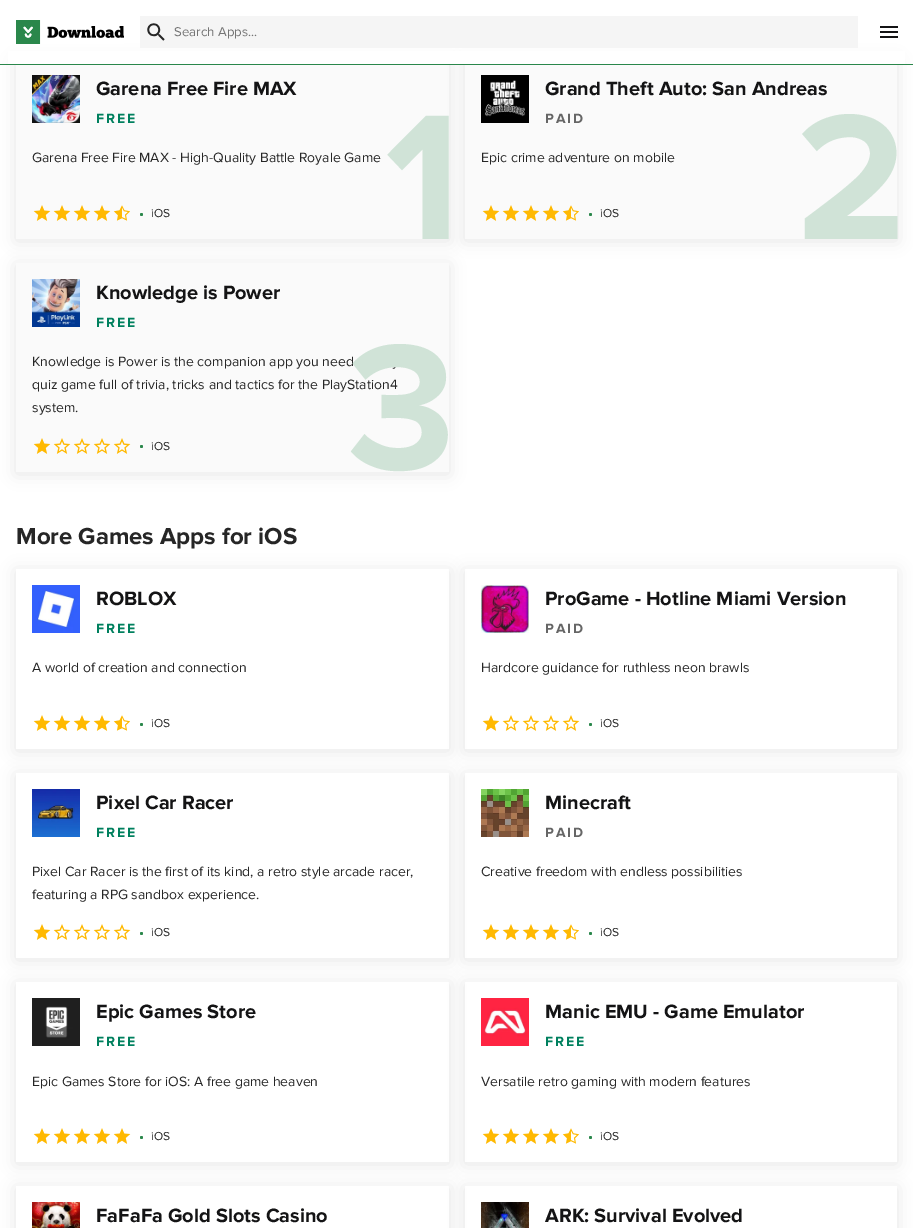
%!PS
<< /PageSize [913 1228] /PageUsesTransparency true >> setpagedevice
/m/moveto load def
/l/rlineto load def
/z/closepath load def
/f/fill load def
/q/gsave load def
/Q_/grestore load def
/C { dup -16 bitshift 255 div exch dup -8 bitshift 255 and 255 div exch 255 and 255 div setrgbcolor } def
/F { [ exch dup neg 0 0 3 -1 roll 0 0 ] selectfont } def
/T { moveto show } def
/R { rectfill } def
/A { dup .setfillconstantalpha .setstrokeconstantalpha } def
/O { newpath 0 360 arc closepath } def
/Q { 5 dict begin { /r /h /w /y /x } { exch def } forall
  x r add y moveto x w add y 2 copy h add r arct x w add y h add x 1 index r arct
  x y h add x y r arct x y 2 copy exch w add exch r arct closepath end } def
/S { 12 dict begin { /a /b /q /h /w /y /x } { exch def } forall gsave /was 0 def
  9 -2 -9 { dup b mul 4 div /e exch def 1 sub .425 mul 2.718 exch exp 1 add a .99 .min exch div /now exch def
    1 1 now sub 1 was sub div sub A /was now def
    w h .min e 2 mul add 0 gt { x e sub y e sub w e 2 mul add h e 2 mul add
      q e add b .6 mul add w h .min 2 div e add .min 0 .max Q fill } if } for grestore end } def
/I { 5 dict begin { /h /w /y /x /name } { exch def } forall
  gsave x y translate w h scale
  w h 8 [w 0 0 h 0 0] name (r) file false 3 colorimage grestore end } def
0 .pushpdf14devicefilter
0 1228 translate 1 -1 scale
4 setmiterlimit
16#FFFFFF C
0 0 913 1228 R
16#000000 C
16 61 433 180 0 8 .1 S
16#FAFAFA C
16 65 433 174 R
16#000000 C
465 61 432 180 0 8 .1 S
16#FFFFFF C
8 51 897 13 R
16#2A874B C
0 64 913 1 R
(1.rgb) 16 20 108 24 I
16#F5F5F5 C
140 16 718 32 R
(2.rgb) 147 23 18 18 I
/ProximaNova-Regular 13.25 F
16#757575 C
(Search Apps...) 174 36 T
(3.rgb) 880 26 18 12 I
(4.rgb) 32 75 48 48 I
/ProximaNova-Bold 20 F
16#141415 C
(Garena Free Fire MAX) 96 95 T
/ProximaNova-Bold 14 F
16#00805E C
96 123 m 2 0 (FREE) ashow
/ProximaNova-Regular 14 F
16#262626 C
(Garena Free Fire MAX - High-Quality Battle Royale Game) 32 162 T
(5.rgb) 33 205 97 16 I
16#2A874B C
141.5 214.5 1.5 O f
/ProximaNova-Regular 12 F
16#262626 C
(iOS) 151 217 T
/ProximaNova-Bold 185 F
16#D0E3D7 C
(1) 385 239 T
16#FAFAFA C
465 65 432 174 R
(6.rgb) 481 75 48 48 I
/ProximaNova-Bold 20 F
16#141415 C
(Grand Theft Auto: San Andreas) 545 95 T
/ProximaNova-Bold 14 F
16#666666 C
545 123 m 2 0 (PAID) ashow
/ProximaNova-Regular 14 F
16#262626 C
(Epic crime adventure on mobile) 481 162 T
(7.rgb) 482 205 97 16 I
16#2A874B C
590.5 214.5 1.5 O f
/ProximaNova-Regular 12 F
16#262626 C
(iOS) 600 217 T
/ProximaNova-Bold 185 F
16#D0E3D7 C
(2) 796 239 T
16#000000 C
16 265 433 209 0 8 .1 S
16#FAFAFA C
16 263 433 209 R
(8.rgb) 32 279 48 48 I
/ProximaNova-Bold 20 F
16#141415 C
(Knowledge is Power) 96 299 T
/ProximaNova-Bold 14 F
16#00805E C
96 327 m 2 0 (FREE) ashow
/ProximaNova-Regular 14 F
16#262626 C
(Knowledge is Power is the companion app you need to play the) 32 366 T
(quiz game full of trivia, tricks and tactics for the PlayStation4) 32 389 T
(system.) 32 412 T
(9.rgb) 33 438 98 16 I
16#2A874B C
141.5 446.5 1.5 O f
/ProximaNova-Regular 12 F
16#262626 C
(iOS) 151 450 T
/ProximaNova-Bold 185 F
16#D0E3D7 C
(3) 347 469 T
/ProximaNova-Bold 24 F
16#262626 C
(More Games Apps for iOS) 16 544 T
q
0 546 m 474 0 l 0 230 l -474 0 l z 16 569 m 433 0 l 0 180 l -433 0 l z eoclip newpath
16#000000 C
16 571 433 180 0 8 .1 S
Q_
(10.rgb) 32 585 48 48 I
/ProximaNova-Bold 20 F
16#141415 C
(ROBLOX) 96 605 T
/ProximaNova-Bold 14 F
16#00805E C
96 633 m 2 0 (FREE) ashow
/ProximaNova-Regular 14 F
16#262626 C
(A world of creation and connection) 32 672 T
(11.rgb) 33 715 97 16 I
16#2A874B C
141.5 724.5 1.5 O f
/ProximaNova-Regular 12 F
16#262626 C
(iOS) 151 727 T
q
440 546 m 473 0 l 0 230 l -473 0 l z 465 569 m 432 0 l 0 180 l -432 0 l z eoclip newpath
16#000000 C
465 571 432 180 0 8 .1 S
Q_
(12.rgb) 481 585 48 48 I
/ProximaNova-Bold 20 F
16#141415 C
(ProGame - Hotline Miami Version) 545 605 T
/ProximaNova-Bold 14 F
16#666666 C
545 633 m 2 0 (PAID) ashow
/ProximaNova-Regular 14 F
16#262626 C
(Hardcore guidance for ruthless neon brawls) 481 672 T
(13.rgb) 482 715 98 16 I
16#2A874B C
590.5 724.5 1.5 O f
/ProximaNova-Regular 12 F
16#262626 C
(iOS) 600 727 T
q
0 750 m 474 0 l 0 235 l -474 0 l z 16 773 m 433 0 l 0 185 l -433 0 l z eoclip newpath
16#000000 C
16 775 433 185 0 8 .1 S
Q_
(14.rgb) 32 789 48 48 I
/ProximaNova-Bold 20 F
16#141415 C
(Pixel Car Racer) 96 809 T
/ProximaNova-Bold 14 F
16#00805E C
96 837 m 2 0 (FREE) ashow
/ProximaNova-Regular 14 F
16#262626 C
(Pixel Car Racer is the first of its kind, a retro style arcade racer,) 32 876 T
(featuring a RPG sandbox experience.) 32 899 T
(15.rgb) 33 924 98 16 I
16#2A874B C
141.5 933.5 1.5 O f
/ProximaNova-Regular 12 F
16#262626 C
(iOS) 151 936 T
q
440 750 m 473 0 l 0 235 l -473 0 l z 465 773 m 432 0 l 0 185 l -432 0 l z eoclip newpath
16#000000 C
465 775 432 185 0 8 .1 S
Q_
(16.rgb) 481 789 48 48 I
/ProximaNova-Bold 20 F
16#141415 C
(Minecraft) 545 809 T
/ProximaNova-Bold 14 F
16#666666 C
545 837 m 2 0 (PAID) ashow
/ProximaNova-Regular 14 F
16#262626 C
(Creative freedom with endless possibilities) 481 876 T
(17.rgb) 482 924 97 16 I
16#2A874B C
590.5 933.5 1.5 O f
/ProximaNova-Regular 12 F
16#262626 C
(iOS) 600 936 T
q
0 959 m 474 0 l 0 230 l -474 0 l z 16 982 m 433 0 l 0 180 l -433 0 l z eoclip newpath
16#000000 C
16 984 433 180 0 8 .1 S
Q_
(18.rgb) 32 998 48 48 I
/ProximaNova-Bold 20 F
16#141415 C
(Epic Games Store) 96 1018 T
/ProximaNova-Bold 14 F
16#00805E C
96 1046 m 2 0 (FREE) ashow
/ProximaNova-Regular 14 F
16#262626 C
(Epic Games Store for iOS: A free game heaven) 32 1086 T
(19.rgb) 33 1128 98 16 I
16#2A874B C
141.5 1137.5 1.5 O f
/ProximaNova-Regular 12 F
16#262626 C
(iOS) 151 1140 T
q
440 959 m 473 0 l 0 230 l -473 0 l z 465 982 m 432 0 l 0 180 l -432 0 l z eoclip newpath
16#000000 C
465 984 432 180 0 8 .1 S
Q_
(20.rgb) 481 998 48 48 I
/ProximaNova-Bold 20 F
16#141415 C
(Manic EMU - Game Emulator) 545 1018 T
/ProximaNova-Bold 14 F
16#00805E C
545 1046 m 2 0 (FREE) ashow
/ProximaNova-Regular 14 F
16#262626 C
(Versatile retro gaming with modern features) 481 1086 T
(21.rgb) 482 1128 97 16 I
16#2A874B C
590.5 1137.5 1.5 O f
/ProximaNova-Regular 12 F
16#262626 C
(iOS) 600 1140 T
q
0 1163 m 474 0 l 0 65 l -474 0 l z 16 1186 m 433 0 l 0 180 l -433 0 l z eoclip newpath
16#000000 C
16 1188 433 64 0 8 .1 S
Q_
(22.rgb) 32 1202 48 26 I
/ProximaNova-Bold 20 F
16#141415 C
(FaFaFa Gold Slots Casino) 96 1222 T
q
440 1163 m 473 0 l 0 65 l -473 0 l z 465 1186 m 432 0 l 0 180 l -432 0 l z eoclip newpath
16#000000 C
465 1188 432 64 0 8 .1 S
Q_
(23.rgb) 481 1202 48 26 I
(ARK: Survival Evolved) 545 1222 T
.poppdf14devicefilter showpage
